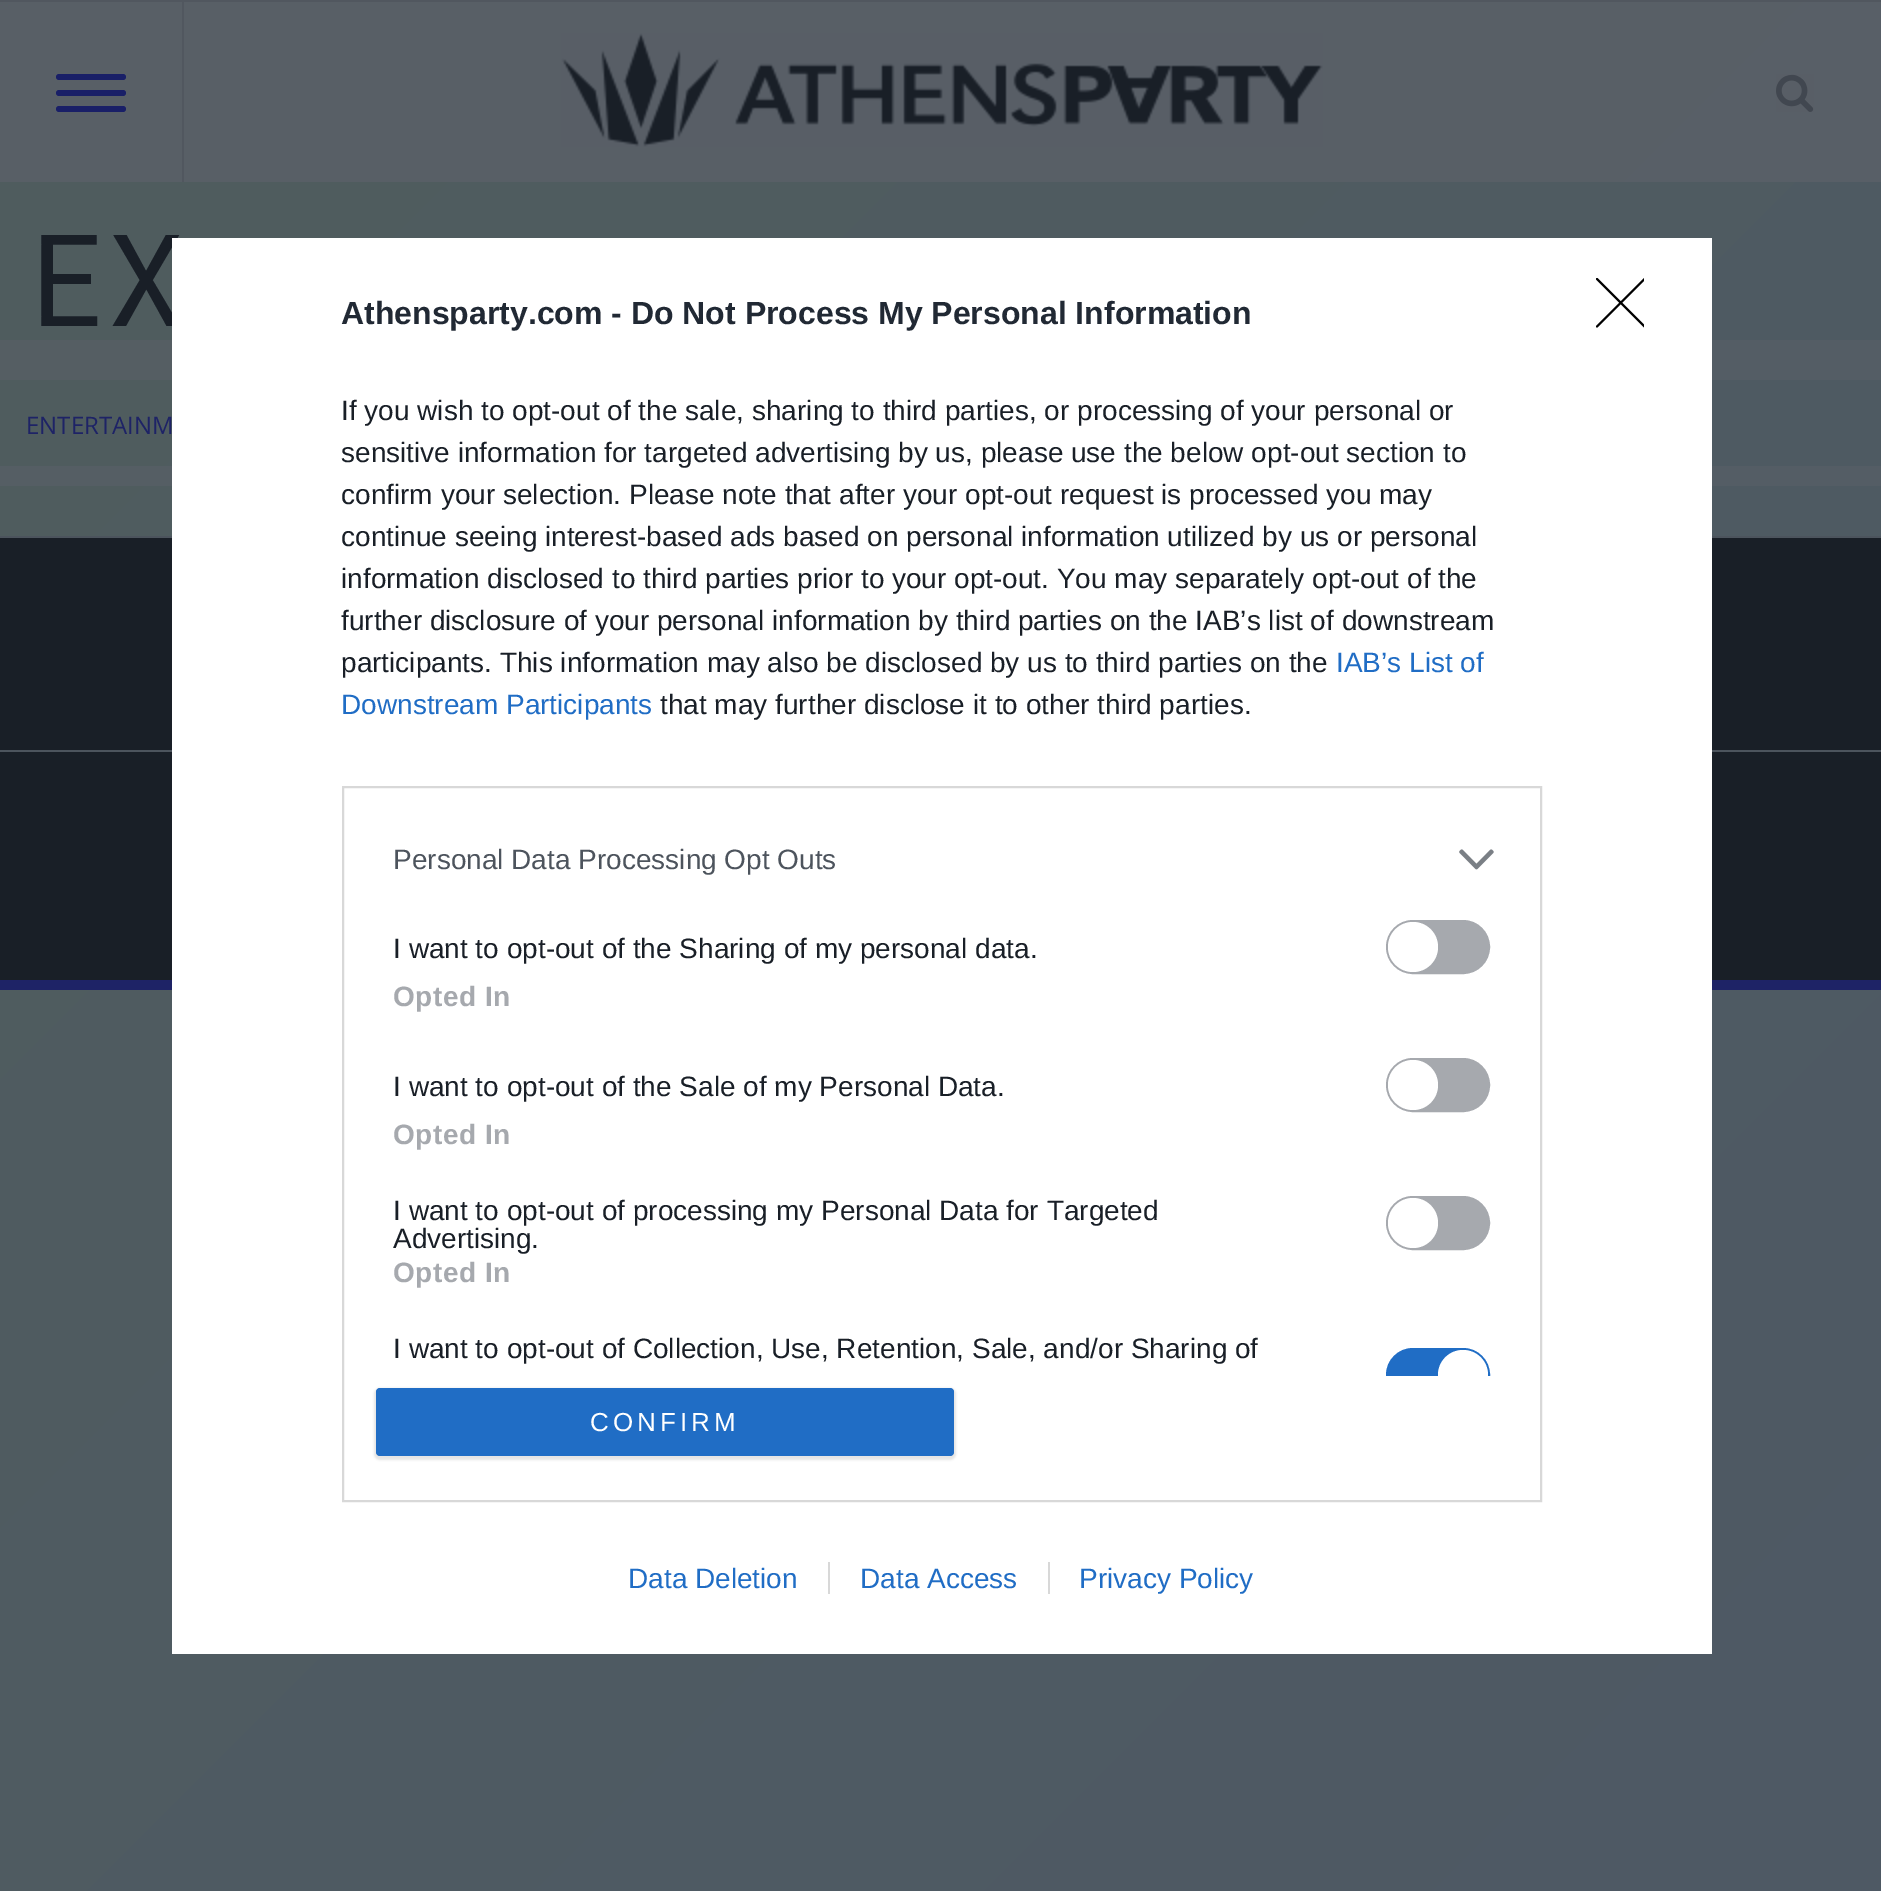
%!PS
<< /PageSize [1881 1891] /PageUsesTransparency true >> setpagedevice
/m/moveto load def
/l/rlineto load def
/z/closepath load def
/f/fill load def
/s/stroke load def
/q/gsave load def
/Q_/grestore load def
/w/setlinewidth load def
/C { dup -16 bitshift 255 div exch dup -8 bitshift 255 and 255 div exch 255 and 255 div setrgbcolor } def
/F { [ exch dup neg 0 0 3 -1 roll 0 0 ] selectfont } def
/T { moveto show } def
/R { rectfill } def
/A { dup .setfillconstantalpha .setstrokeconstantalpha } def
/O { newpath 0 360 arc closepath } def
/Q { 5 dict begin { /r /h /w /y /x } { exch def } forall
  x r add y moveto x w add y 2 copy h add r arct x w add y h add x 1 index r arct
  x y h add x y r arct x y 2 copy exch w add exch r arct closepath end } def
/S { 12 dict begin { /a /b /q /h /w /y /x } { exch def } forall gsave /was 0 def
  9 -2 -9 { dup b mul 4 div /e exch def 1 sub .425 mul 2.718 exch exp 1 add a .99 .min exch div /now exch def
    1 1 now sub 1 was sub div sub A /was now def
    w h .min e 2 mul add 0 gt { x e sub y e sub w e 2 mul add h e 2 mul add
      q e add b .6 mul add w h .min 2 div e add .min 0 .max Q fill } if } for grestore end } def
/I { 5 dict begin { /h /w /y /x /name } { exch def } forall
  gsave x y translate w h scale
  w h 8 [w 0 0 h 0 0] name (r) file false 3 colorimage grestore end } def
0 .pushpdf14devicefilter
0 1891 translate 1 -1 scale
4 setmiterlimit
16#FFFFFF C
0 0 1881 1891 R
16#51575F C
0 0 1881 2 R
q 0 2 m 1881 0 l 0 180 l -1881 0 l z clip newpath
<< /ShadingType 2 /ColorSpace /DeviceRGB /Coords [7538 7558 -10 10] /Extend [true true] /Function << /FunctionType 3 /Domain [0 1] /Functions [<< /FunctionType 2 /Domain [0 1] /C0 [.349 .369 .4] /C1 [.349 .369 .404] /N 1 >> << /FunctionType 2 /Domain [0 1] /C0 [.349 .369 .404] /C1 [.345 .369 .404] /N 1 >> << /FunctionType 2 /Domain [0 1] /C0 [.345 .369 .404] /C1 [.345 .369 .404] /N 1 >> << /FunctionType 2 /Domain [0 1] /C0 [.345 .369 .404] /C1 [.345 .373 .4] /N 1 >>] /Bounds [.25 .5 .75] /Encode [0 1 0 1 0 1 0 1] >> >> shfill Q_
182 2 2 180 R
16#191F67 C
56 74 70 6 3 Q f
56 90 70 6 3 Q f
56 106 70 6 3 Q f
(1.rgb) 561 33 762 114 I
(2.rgb) 1776 74 38 38 I
q 0 182 m 1881 0 l 0 1709 l -1881 0 l z clip newpath
<< /ShadingType 2 /ColorSpace /DeviceRGB /Coords [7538 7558 -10 10] /Extend [true true] /Function << /FunctionType 3 /Domain [0 1] /Functions [<< /FunctionType 2 /Domain [0 1] /C0 [.341 .345 .357] /C1 [.345 .353 .38] /N 1 >> << /FunctionType 2 /Domain [0 1] /C0 [.345 .353 .38] /C1 [.318 .341 .388] /N 1 >> << /FunctionType 2 /Domain [0 1] /C0 [.318 .341 .388] /C1 [.306 .349 .396] /N 1 >> << /FunctionType 2 /Domain [0 1] /C0 [.306 .349 .396] /C1 [.31 .365 .369] /N 1 >>] /Bounds [.25 .5 .75] /Encode [0 1 0 1 0 1 0 1] >> >> shfill Q_
q 0 466 m 1881 0 l 0 20 l -1881 0 l z clip newpath
<< /ShadingType 2 /ColorSpace /DeviceRGB /Coords [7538 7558 -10 10] /Extend [true true] /Function << /FunctionType 3 /Domain [0 1] /Functions [<< /FunctionType 2 /Domain [0 1] /C0 [.345 .361 .384] /C1 [.345 .365 .396] /N 1 >> << /FunctionType 2 /Domain [0 1] /C0 [.345 .365 .396] /C1 [.337 .361 .396] /N 1 >> << /FunctionType 2 /Domain [0 1] /C0 [.337 .361 .396] /C1 [.329 .361 .4] /N 1 >> << /FunctionType 2 /Domain [0 1] /C0 [.329 .361 .4] /C1 [.333 .369 .388] /N 1 >>] /Bounds [.25 .5 .75] /Encode [0 1 0 1 0 1 0 1] >> >> shfill Q_
q 0 340 m 1881 0 l 0 40 l -1881 0 l z clip newpath
<< /ShadingType 2 /ColorSpace /DeviceRGB /Coords [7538 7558 -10 10] /Extend [true true] /Function << /FunctionType 3 /Domain [0 1] /Functions [<< /FunctionType 2 /Domain [0 1] /C0 [.345 .361 .384] /C1 [.345 .365 .396] /N 1 >> << /FunctionType 2 /Domain [0 1] /C0 [.345 .365 .396] /C1 [.337 .361 .396] /N 1 >> << /FunctionType 2 /Domain [0 1] /C0 [.337 .361 .396] /C1 [.329 .361 .4] /N 1 >> << /FunctionType 2 /Domain [0 1] /C0 [.329 .361 .4] /C1 [.333 .369 .388] /N 1 >>] /Bounds [.25 .5 .75] /Encode [0 1 0 1 0 1 0 1] >> >> shfill Q_
/RobotoMono-Regular 128 F
16#191F27 C
(EX) 30 326 T
/OpenSans-Regular 24 F
16#1E2366 C
(ENTERTAINM) 26 434 T
16#191F27 C
0 538 1881 212 R
16#4C545D C
0 536 1881 2 R
16#191F27 C
0 752 1881 228 R
16#4C545D C
0 750 1881 2 R
16#1E2366 C
0 980 1881 10 R
16#FFFFFF C
172 238 1540 1416 R
/LiberationSans-Bold 32 F
16#212934 C
(Athensparty.com - Do Not Process My Personal Information) 341 324 T
/LiberationSans-Regular 28 F
16#191F27 C
(If you wish to opt-out of the sale, sharing to third parties, or processing of your personal or) 341 420 T
(sensitive information for targeted advertising by us, please use the below opt-out section to) 341 462 T
(confirm your selection. Please note that after your opt-out request is processed you may) 341 504 T
(continue seeing interest-based ads based on personal information utilized by us or personal) 341 546 T
(information disclosed to third parties prior to your opt-out. You may separately opt-out of the) 341 588 T
(further disclosure of your personal information by third parties on the IAB’s list of downstream) 341 630 T
(participants. This information may also be disclosed by us to third parties on the) 341 672 T
16#206DC5 C
(IAB’s List of) 1336 672 T
(Downstream Participants) 341 714 T
16#191F27 C
(that may further disclose it to other third parties.) 660 714 T
16#D8D8D8 C
2 w
343 787 1198 714 rectstroke
16#4D545D C
(Personal Data Processing Opt Outs) 393 869 T
(3.rgb) 1459 849 35 21 I
16#191F27 C
(I want to opt-out of the Sharing of my personal data.) 393 958 T
16#A6A9AE C
1387 921 102 52 26 Q q f Q_
s
16#FFFFFF C
1413 947 25 O f
/LiberationSans-Bold 28 F
16#A6A9AE C
393 1006 m .5 0 (Opted In) ashow
/LiberationSans-Regular 28 F
16#191F27 C
(I want to opt-out of the Sale of my Personal Data.) 393 1096 T
16#A6A9AE C
1387 1059 102 52 26 Q q f Q_
s
16#FFFFFF C
1413 1085 25 O f
/LiberationSans-Bold 28 F
16#A6A9AE C
393 1144 m .5 0 (Opted In) ashow
/LiberationSans-Regular 28 F
16#191F27 C
(I want to opt-out of processing my Personal Data for Targeted) 393 1220 T
(Advertising.) 393 1248 T
16#A6A9AE C
1387 1197 102 52 26 Q q f Q_
s
16#FFFFFF C
1413 1223 25 O f
/LiberationSans-Bold 28 F
16#A6A9AE C
393 1282 m .5 0 (Opted In) ashow
/LiberationSans-Regular 28 F
16#191F27 C
(I want to opt-out of Collection, Use, Retention, Sale, and/or Sharing of) 393 1358 T
q
364 808 1156 568 rectclip
16#206DC5 C
1387 1349 102 52 26 Q q f Q_
s
16#FFFFFF C
1463 1375 25 O f
Q_
16#000000 C
374 1388 582 72 6 1 .1 S
16#206DC5 C
376 1388 578 68 4 Q f
/LiberationSans-Regular 26 F
16#FFFFFF C
590 1431 m 4 0 (CONFIRM) ashow
q
1596 278 48 50 rectclip
16#000000 C
2.1 w
1 setlinecap
1 setlinejoin
1597 279 m 47.5 47.5 l 1644.5 279 m -47.5 47.5 l s
Q_
/LiberationSans-Regular 28 F
16#206DC5 C
(Data Deletion) 628 1588 T
(Data Access) 860 1588 T
16#D8D8D8 C
828 1562 2 32 R
16#206DC5 C
(Privacy Policy) 1079 1588 T
16#D8D8D8 C
1048 1562 2 32 R
.poppdf14devicefilter showpage
